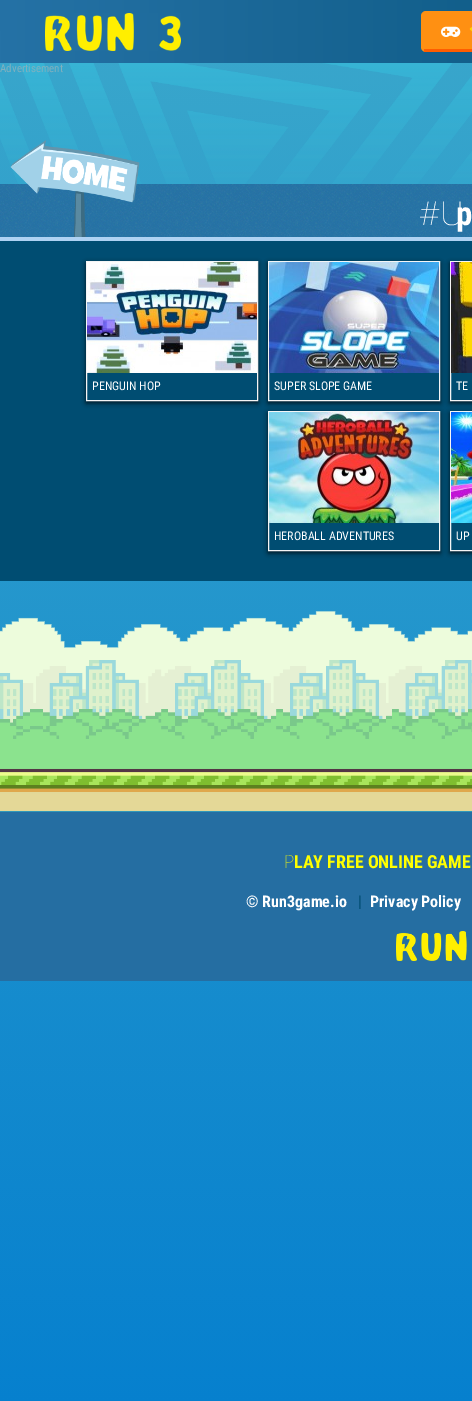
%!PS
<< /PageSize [472 1401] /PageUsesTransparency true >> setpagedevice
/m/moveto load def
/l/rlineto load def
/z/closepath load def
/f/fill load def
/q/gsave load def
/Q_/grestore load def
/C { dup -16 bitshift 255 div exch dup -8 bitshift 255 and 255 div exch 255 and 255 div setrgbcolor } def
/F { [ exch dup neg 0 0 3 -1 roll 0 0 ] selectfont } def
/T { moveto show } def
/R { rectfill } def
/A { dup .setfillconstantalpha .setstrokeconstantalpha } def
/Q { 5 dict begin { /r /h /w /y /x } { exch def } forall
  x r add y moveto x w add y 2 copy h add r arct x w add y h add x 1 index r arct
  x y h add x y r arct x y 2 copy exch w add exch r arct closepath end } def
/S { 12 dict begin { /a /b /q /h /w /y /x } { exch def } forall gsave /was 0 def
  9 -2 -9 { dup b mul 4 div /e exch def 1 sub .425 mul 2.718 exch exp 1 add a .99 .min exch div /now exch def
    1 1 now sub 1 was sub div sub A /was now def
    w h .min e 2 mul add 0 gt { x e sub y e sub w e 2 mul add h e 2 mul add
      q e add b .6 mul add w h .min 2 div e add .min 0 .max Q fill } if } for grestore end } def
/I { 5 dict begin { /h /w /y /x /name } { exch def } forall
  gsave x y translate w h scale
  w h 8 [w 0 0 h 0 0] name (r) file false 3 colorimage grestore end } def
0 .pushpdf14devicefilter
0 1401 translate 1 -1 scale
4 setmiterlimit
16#FFFFFF C
0 0 472 1401 R
(1.rgb) 0 63 472 1338 I
q 0 0 m 472 0 l 0 63 l -472 0 l z clip newpath
<< /ShadingType 2 /ColorSpace /DeviceRGB /Coords [0 32 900 31] /Extend [true true] /Function << /FunctionType 2 /Domain [0 1] /C0 [.145 .447 .651] /C1 [0 .302 .447] /N 1 >> >> shfill Q_
(2.rgb) 45 13 136 38 I
16#FF9012 C
421 11 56 41 5 Q f
16#FF5D01 C
424 49 48 3 R
(3.rgb) 441 26 20 11 I
(4.rgb) 469 27 3 5 I
/RobotoCondensed-Regular 11 F
16#81B0BE C
(Advertisement) 0 72 T
16#004D72 C
0 241 472 340 R
16#2572A6 C
0 184 472 53 R
(5.rgb) 0 184 472 53 I
(6.rgb) 10 140 130 97 I
/NotoSans-Thin 33 F
16#FFFFFF C
(#U) 419 225 T
/RobotoCondensed-Bold 33 F
(p) 456 225 T
16#AED2F3 C
0 237 472 4 R
q
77 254 m 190 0 l 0 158 l -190 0 l z 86 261 m 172 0 l 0 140 l -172 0 l z eoclip newpath
16#000000 C
86 263 172 140 0 2.5 .7 S
Q_
16#F5F5F5 C
86.5 261.5 171 139 rectstroke
(7.rgb) 87 262 170 111 I
/RobotoCondensed-Regular 12 F
16#FFFFFF C
(PENGUIN HOP) 92 390 T
q
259 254 m 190 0 l 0 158 l -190 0 l z 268 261 m 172 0 l 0 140 l -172 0 l z eoclip newpath
16#000000 C
268 263 172 140 0 2.5 .7 S
Q_
16#F5F5F5 C
268.5 261.5 171 139 rectstroke
(8.rgb) 269 262 170 111 I
16#FFFFFF C
(SUPER SLOPE GAME) 274 390 T
q
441 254 m 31 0 l 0 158 l -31 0 l z 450 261 m 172 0 l 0 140 l -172 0 l z eoclip newpath
16#000000 C
450 263 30 140 0 2.5 .7 S
Q_
16#F5F5F5 C
450.5 261.5 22 139 rectstroke
(9.rgb) 451 262 21 111 I
16#FFFFFF C
(TE) 456 390 T
q
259 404 m 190 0 l 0 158 l -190 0 l z 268 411 m 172 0 l 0 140 l -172 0 l z eoclip newpath
16#000000 C
268 413 172 140 0 2.5 .7 S
Q_
16#F5F5F5 C
268.5 411.5 171 139 rectstroke
(10.rgb) 269 412 170 111 I
16#FFFFFF C
(HEROBALL ADVENTURES) 274 540 T
q
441 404 m 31 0 l 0 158 l -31 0 l z 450 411 m 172 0 l 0 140 l -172 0 l z eoclip newpath
16#000000 C
450 413 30 140 0 2.5 .7 S
Q_
16#F5F5F5 C
450.5 411.5 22 139 rectstroke
(11.rgb) 451 412 21 111 I
16#FFFFFF C
(UP) 456 540 T
(12.rgb) 0 611 472 200 I
16#256EA2 C
0 812 472 169 R
16#3198B9 C
0 811 472 1 R
/NotoSans-Thin 18 F
16#FFFF00 C
(P) 284 868 T
/RobotoCondensed-Bold 18 F
(LAY FREE ONLINE GAME) 294 868 T
/RobotoCondensed-Bold 16 F
16#FFFFFF C
(© Run3game.io) 246 907 T
/RobotoCondensed-Regular 16 F
16#004D72 C
(|) 358 907 T
/RobotoCondensed-Bold 16 F
16#FFFFFF C
(Privacy Policy) 370 907 T
(13.rgb) 396 931 71 30 I
.poppdf14devicefilter showpage
